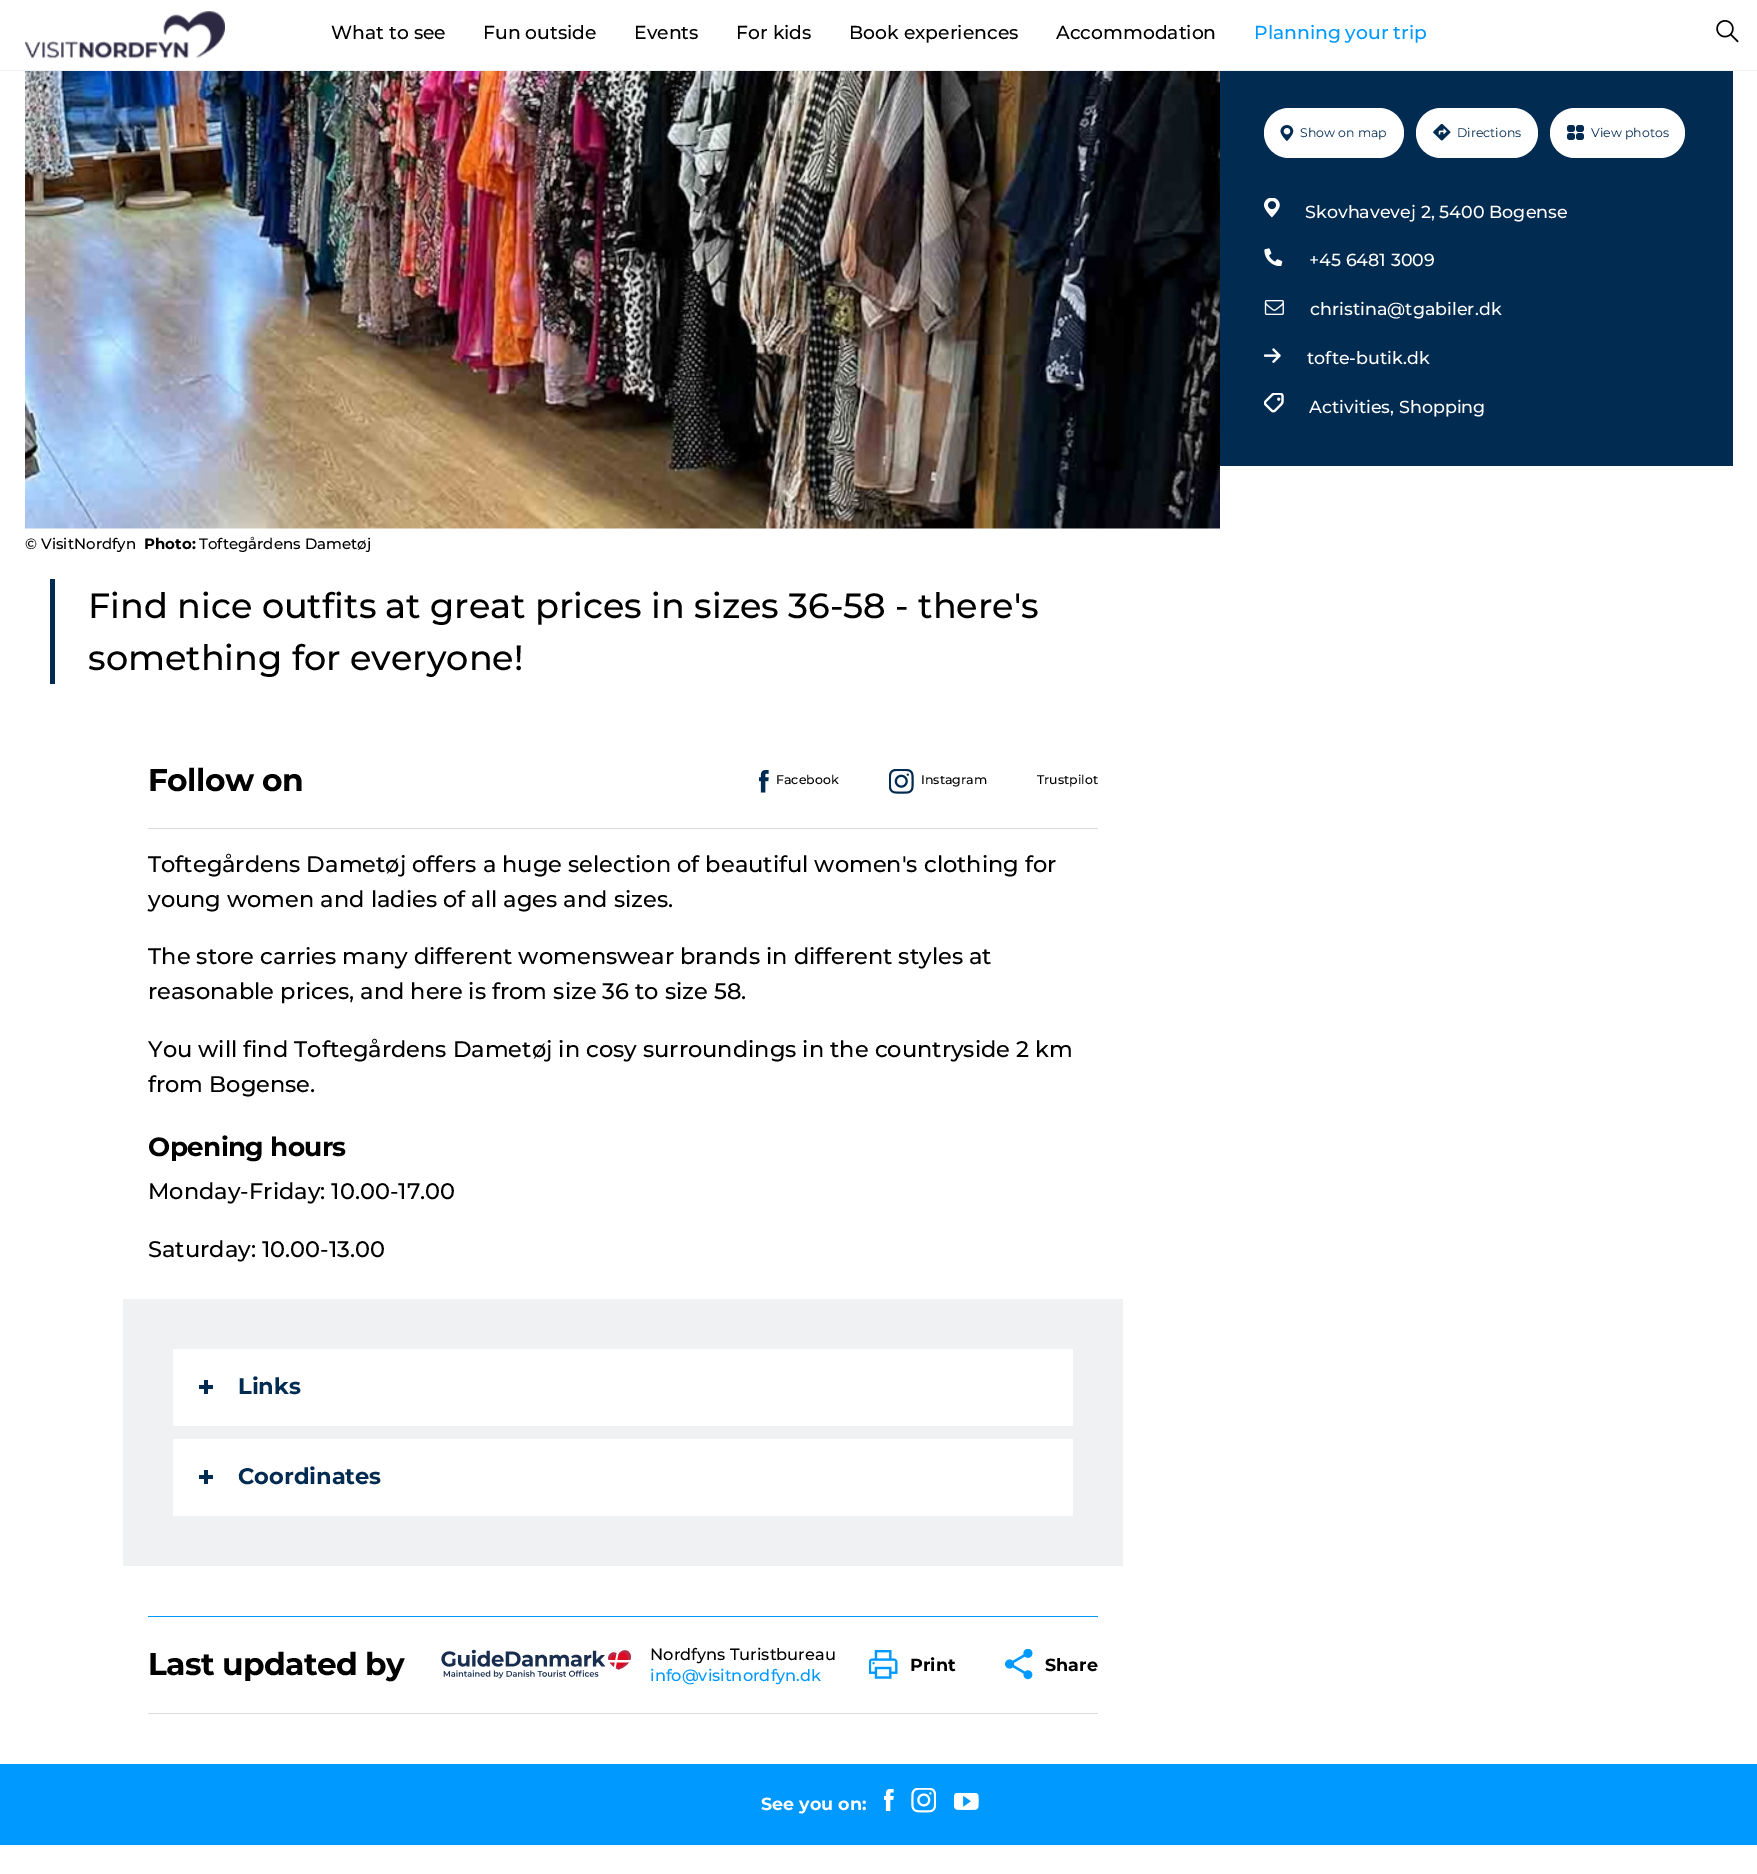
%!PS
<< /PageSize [1757 1874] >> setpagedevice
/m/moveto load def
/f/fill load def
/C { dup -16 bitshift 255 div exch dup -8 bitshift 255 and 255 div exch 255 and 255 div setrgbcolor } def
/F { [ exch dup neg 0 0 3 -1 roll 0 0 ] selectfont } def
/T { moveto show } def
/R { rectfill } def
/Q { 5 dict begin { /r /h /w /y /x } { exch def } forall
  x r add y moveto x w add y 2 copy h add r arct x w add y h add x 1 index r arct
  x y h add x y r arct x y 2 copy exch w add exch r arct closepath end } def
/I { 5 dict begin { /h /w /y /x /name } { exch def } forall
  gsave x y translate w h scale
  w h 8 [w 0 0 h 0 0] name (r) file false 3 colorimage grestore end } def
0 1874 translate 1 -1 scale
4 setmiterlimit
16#FFFFFF C
0 0 1757 1874 R
16#F0F1F3 C
0 70 1757 1 R
(1.rgb) 25 11 200 48 I
/Montserrat-Medium 18.75 F
16#000000 C
(What to see) 331 39 T
(Fun outside) 483 39 T
(Events) 634 39 T
(For kids) 736 39 T
(Book experiences) 849 39 T
(Accommodation) 1056 39 T
16#0099FF C
(Planning your trip) 1254 39 T
(2.rgb) 1716 20 23 23 I
16#022B52 C
1220 71 513 395 R
16#FFFFFF C
1264 108 140 50 25 Q f
(3.rgb) 1280 125 14 16 I
/Montserrat-Regular 12.5 F
16#022B52 C
(Show on map) 1300 137 T
16#FFFFFF C
1416 108 122 50 25 Q f
(4.rgb) 1433 124 18 17 I
16#022B52 C
(Directions) 1457 137 T
16#FFFFFF C
1550 108 135 50 25 Q f
(5.rgb) 1567 125 17 15 I
16#022B52 C
(View photos) 1591 137 T
(6.rgb) 1264 198 16 20 I
/Montserrat-Medium 17.5 F
16#FFFFFF C
(Skovhavevej 2, 5400 Bogense) 1305 218 T
(7.rgb) 1264 248 19 18 I
(+45 6481 3009) 1309 266 T
(8.rgb) 1264 300 20 15 I
(christina@tgabiler.dk) 1310 315 T
(9.rgb) 1264 348 17 15 I
(tofte-butik.dk) 1307 364 T
(10.rgb) 1264 393 20 20 I
(Activities, Shopping) 1309 413 T
(11.rgb) 25 71 1195 458 I
/Montserrat-Medium 15 F
16#000000 C
(© VisitNordfyn) 25 549 T
/Montserrat-Bold 15 F
(Photo:) 144 549 T
/Montserrat-Medium 15 F
(Toftegårdens Dametøj) 199 549 T
16#022B52 C
50 579 5 105 R
/Montserrat-Medium 35 F
16#000000 C
(Find nice outfits at great prices in sizes 36-58 - there's) 88 618 T
(something for everyone!) 88 670 T
16#D8DADC C
148 828 950 1 R
/Montserrat-Bold 31.25 F
16#000000 C
148 791 m -.6 0 (Follow on) ashow
(12.rgb) 759 770 10 23 I
/Montserrat-Medium 12.5 F
(Facebook) 776 784 T
(13.rgb) 889 769 25 25 I
(Instagram) 921 784 T
(Trustpilot) 1037 784 T
/Montserrat-Medium 22.5 F
(Toftegårdens Dametøj offers a huge selection of beautiful women's clothing for) 148 872 T
(young women and ladies of all ages and sizes.) 148 907 T
(The store carries many different womenswear brands in different styles at) 148 964 T
(reasonable prices, and here is from size 36 to size 58.) 148 999 T
(You will find Toftegårdens Dametøj in cosy surroundings in the countryside 2 km) 148 1057 T
(from Bogense.) 148 1092 T
/Montserrat-Bold 26.25 F
148 1156 m -.6 0 (Opening hours) ashow
/Montserrat-Medium 22.5 F
(Monday-Friday: 10.00-17.00) 148 1199 T
(Saturday: 10.00-13.00) 148 1257 T
16#EFF1F3 C
123 1299 1000 267 R
16#FFFFFF C
173 1349 900 77 R
16#022B52 C
199 1385 14 4 R
204 1380 4 14 R
/Montserrat-Bold 22.5 F
(Links) 238 1394 T
16#FFFFFF C
173 1439 900 77 R
16#022B52 C
199 1475 14 4 R
204 1470 4 14 R
(Coordinates) 238 1484 T
16#0099FF C
148 1616 950 1 R
16#DEDCDA C
148 1713 950 1 R
/Montserrat-Bold 31.25 F
16#000000 C
148 1675 m -.6 0 (Last updated by) ashow
(14.rgb) 441 1649 190 30 I
/Montserrat-Medium 16.25 F
(Nordfyns Turistbureau) 650 1660 T
16#0099FF C
(info@visitnordfyn.dk) 650 1681 T
(15.rgb) 869 1650 29 29 I
/Montserrat-Bold 17.5 F
16#000000 C
(Print) 910 1671 T
(16.rgb) 1005 1649 28 31 I
(Share) 1045 1671 T
16#0099FF C
0 1764 1757 81 R
16#FFFFFF C
(See you on:) 761 1810 T
(17.rgb) 884 1789 10 22 I
(18.rgb) 911 1788 25 25 I
(19.rgb) 954 1793 25 17 I
showpage
